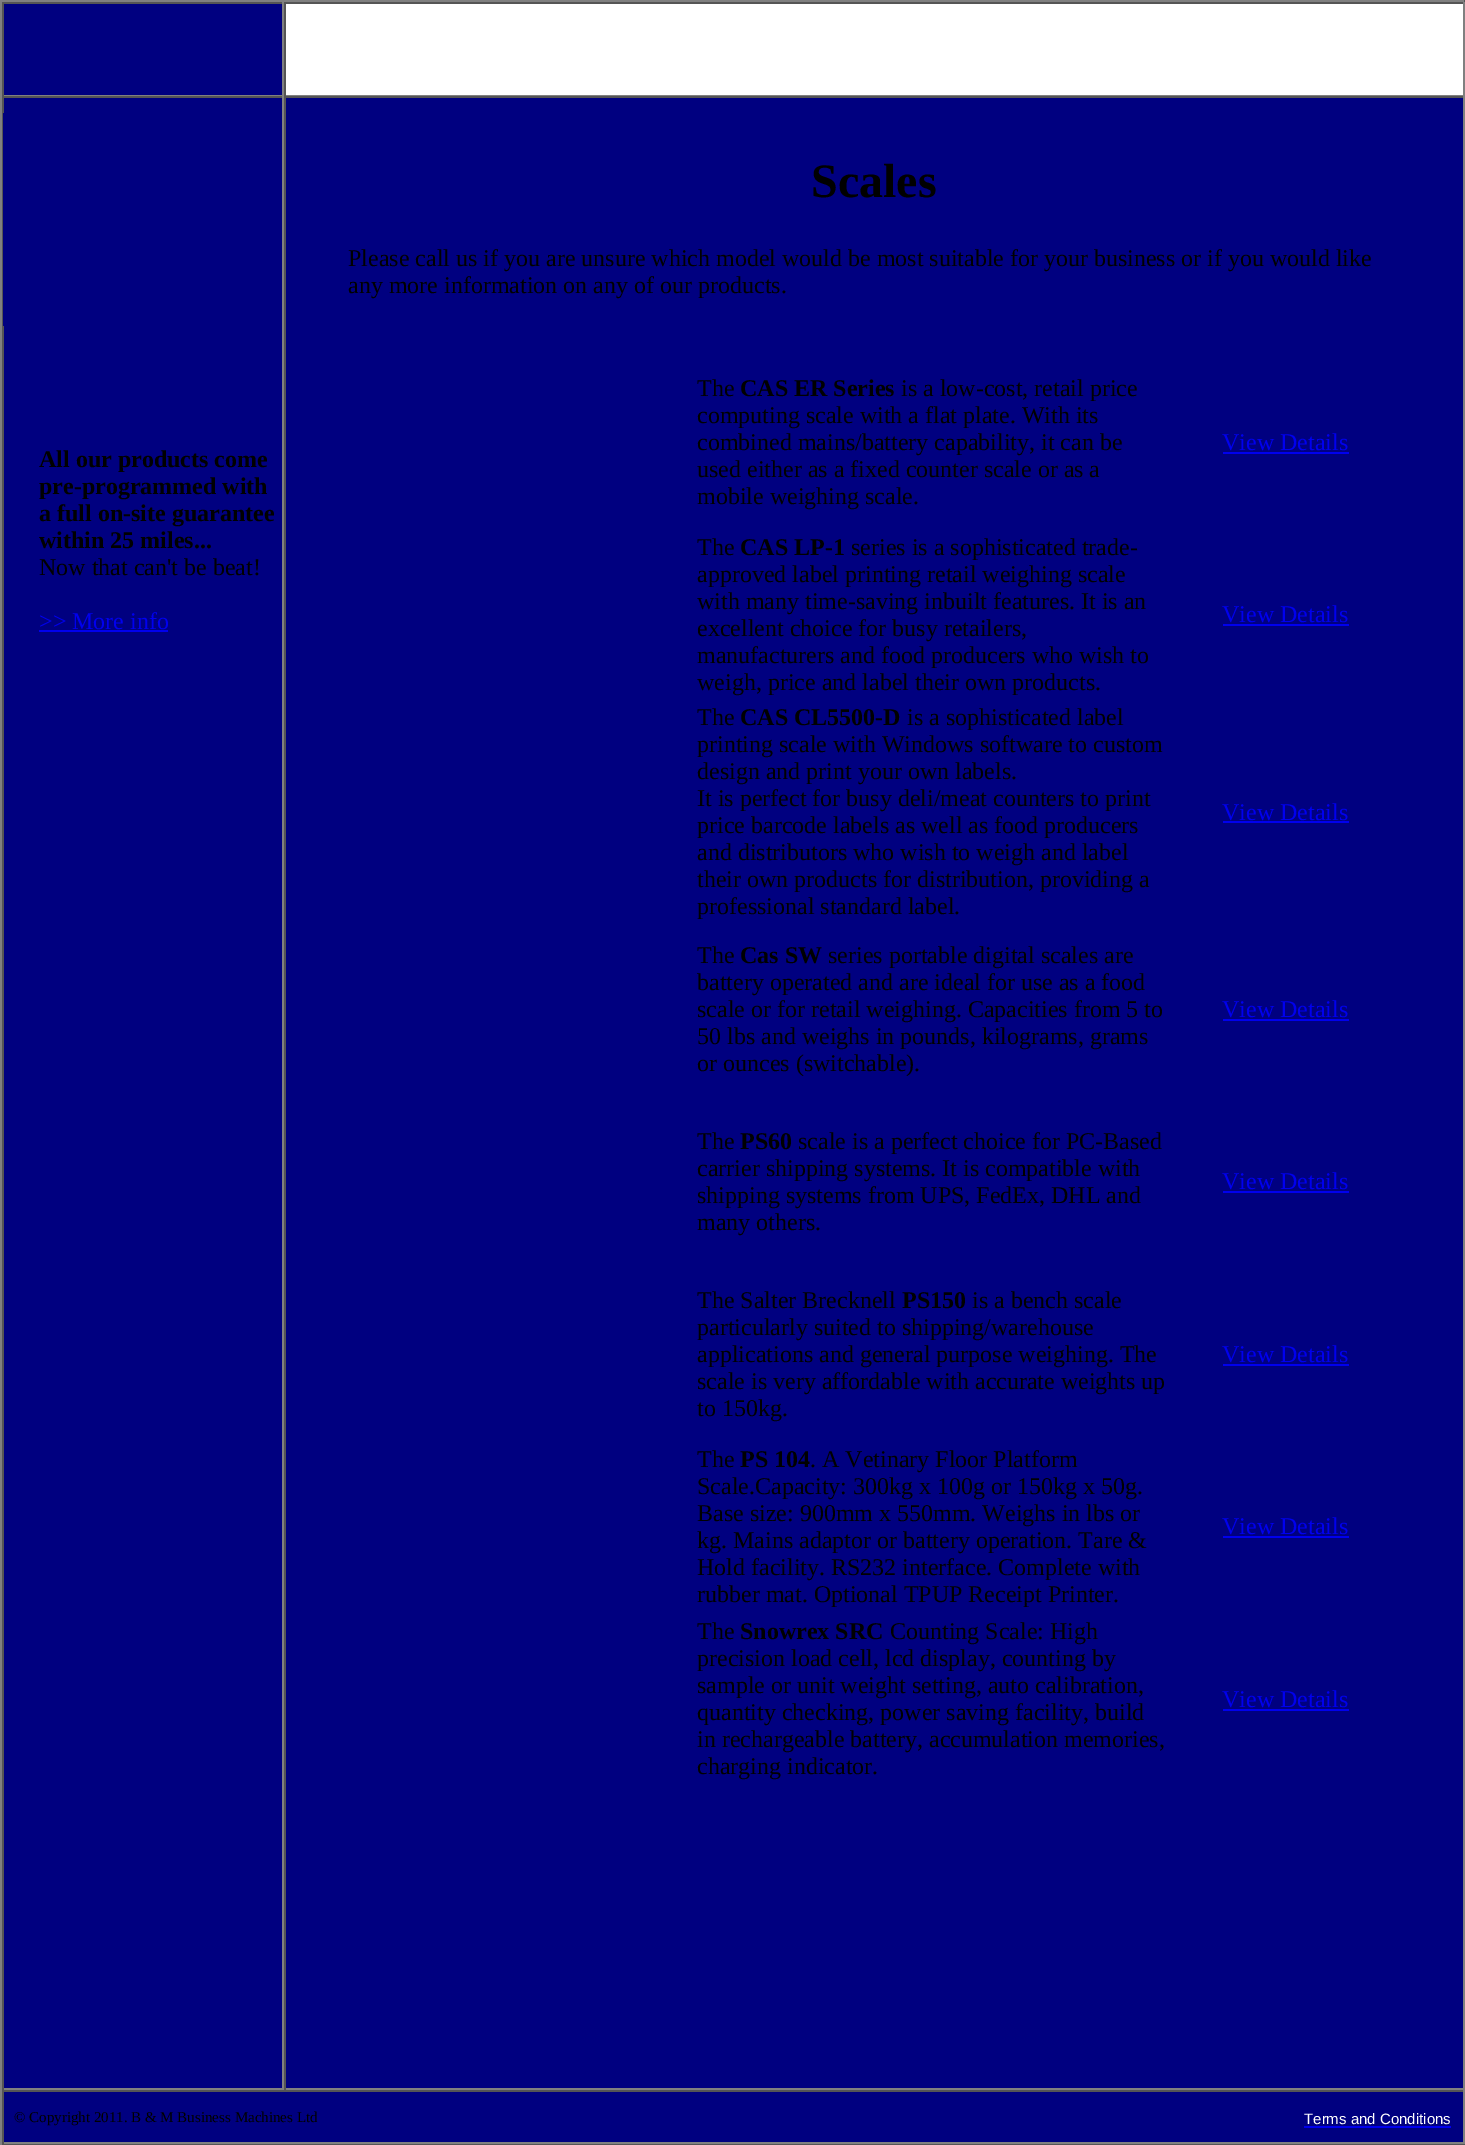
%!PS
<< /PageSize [1465 2145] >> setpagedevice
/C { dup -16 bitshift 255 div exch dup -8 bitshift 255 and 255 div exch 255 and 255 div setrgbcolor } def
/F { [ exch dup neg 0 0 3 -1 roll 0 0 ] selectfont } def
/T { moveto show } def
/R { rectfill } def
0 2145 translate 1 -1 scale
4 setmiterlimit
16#FFFFFF C
0 0 1465 2145 R
16#808080 C
0 0 1465 2 R
16#555555 C
1464 0 1 2 R
0 2144 1465 1 R
16#808080 C
0 0 2 2145 R
16#000080 C
4 4 278 91 R
16#555555 C
2 2 1462 2 R
16#808080 C
282 2 2 94 R
2 95 282 1 R
16#555555 C
2 2 2 94 R
16#808080 C
1463 2 2 94 R
284 95 1180 1 R
16#555555 C
284 2 2 94 R
16#000080 C
4 98 278 1990 R
16#555555 C
2 96 1462 2 R
16#808080 C
282 96 2 1994 R
2 2088 282 2 R
16#555555 C
2 96 2 1994 R
16#000080 C
3 113 1 213 R
/LiberationSerif-Bold 24 F
16#000000 C
(All our products come) 39 467 T
(pre-programmed with) 39 494 T
(a full on-site guarantee) 39 521 T
(within 25 miles...) 39 548 T
/LiberationSerif-Regular 24 F
(Now that can't be beat!) 39 575 T
16#0000EE C
(>> More info) 39 629 T
39 630 129 2 R
16#000080 C
286 98 1177 1990 R
16#808080 C
1463 96 2 1994 R
284 2088 1180 2 R
16#555555 C
284 96 2 1994 R
/LiberationSerif-Bold 48 F
16#000000 C
(Scales) 811 197 T
/LiberationSerif-Regular 24 F
(Please call us if you are unsure which model would be most suitable for your business or if you would like) 348 266 T
(any more information on any of our products.) 348 293 T
(The) 697 396 T
/LiberationSerif-Bold 24 F
(CAS ER Series) 740 396 T
/LiberationSerif-Regular 24 F
(is a low-cost, retail price) 901 396 T
(computing scale with a flat plate. With its) 697 423 T
(combined mains/battery capability, it can be) 697 450 T
(used either as a fixed counter scale or as a) 697 477 T
(mobile weighing scale.) 697 504 T
16#0000EE C
(View Details) 1222 450 T
1223 452 126 2 R
16#000000 C
(The) 697 555 T
/LiberationSerif-Bold 24 F
(CAS LP-1) 740 555 T
/LiberationSerif-Regular 24 F
(series is a sophisticated trade-) 851 555 T
(approved label printing retail weighing scale) 697 582 T
(with many time-saving inbuilt features. It is an) 697 609 T
(excellent choice for busy retailers,) 697 636 T
(manufacturers and food producers who wish to) 697 663 T
(weigh, price and label their own products.) 697 690 T
16#0000EE C
(View Details) 1222 622 T
1223 624 126 2 R
16#000000 C
(The) 697 725 T
/LiberationSerif-Bold 24 F
(CAS CL5500-D) 740 725 T
/LiberationSerif-Regular 24 F
(is a sophisticated label) 907 725 T
(printing scale with Windows software to custom) 697 752 T
(design and print your own labels.) 697 779 T
(It is perfect for busy deli/meat counters to print) 697 806 T
(price barcode labels as well as food producers) 697 833 T
(and distributors who wish to weigh and label) 697 860 T
(their own products for distribution, providing a) 697 887 T
(professional standard label.) 697 914 T
16#0000EE C
(View Details) 1222 820 T
1223 821 126 2 R
16#000000 C
(The) 697 963 T
/LiberationSerif-Bold 24 F
(Cas SW) 740 963 T
/LiberationSerif-Regular 24 F
(series portable digital scales are) 828 963 T
(battery operated and are ideal for use as a food) 697 990 T
(scale or for retail weighing. Capacities from 5 to) 697 1017 T
(50 lbs and weighs in pounds, kilograms, grams) 697 1044 T
(or ounces \(switchable\).) 697 1071 T
16#0000EE C
(View Details) 1222 1017 T
1223 1019 126 2 R
16#000000 C
(The) 697 1149 T
/LiberationSerif-Bold 24 F
(PS60) 740 1149 T
/LiberationSerif-Regular 24 F
(scale is a perfect choice for PC-Based) 798 1149 T
(carrier shipping systems. It is compatible with) 697 1176 T
(shipping systems from UPS, FedEx, DHL and) 697 1203 T
(many others.) 697 1230 T
16#0000EE C
(View Details) 1222 1189 T
1223 1191 126 2 R
16#000000 C
(The Salter Brecknell) 697 1308 T
/LiberationSerif-Bold 24 F
(PS150) 902 1308 T
/LiberationSerif-Regular 24 F
(is a bench scale) 972 1308 T
(particularly suited to shipping/warehouse) 697 1335 T
(applications and general purpose weighing. The) 697 1362 T
(scale is very affordable with accurate weights up) 697 1389 T
(to 150kg.) 697 1416 T
16#0000EE C
(View Details) 1222 1362 T
1223 1364 126 2 R
16#000000 C
(The) 697 1467 T
/LiberationSerif-Bold 24 F
(PS 104) 740 1467 T
/LiberationSerif-Regular 24 F
(. A Vetinary Floor Platform) 810 1467 T
(Scale.Capacity: 300kg x 100g or 150kg x 50g.) 697 1494 T
(Base size: 900mm x 550mm. Weighs in lbs or) 697 1521 T
(kg. Mains adaptor or battery operation. Tare &) 697 1548 T
(Hold facility. RS232 interface. Complete with) 697 1575 T
(rubber mat. Optional TPUP Receipt Printer.) 697 1602 T
16#0000EE C
(View Details) 1222 1534 T
1223 1536 126 2 R
16#000000 C
(The) 697 1639 T
/LiberationSerif-Bold 24 F
(Snowrex SRC) 740 1639 T
/LiberationSerif-Regular 24 F
(Counting Scale: High) 890 1639 T
(precision load cell, lcd display, counting by) 697 1666 T
(sample or unit weight setting, auto calibration,) 697 1693 T
(quantity checking, power saving facility, build) 697 1720 T
(in rechargeable battery, accumulation memories,) 697 1747 T
(charging indicator.) 697 1774 T
16#0000EE C
(View Details) 1222 1707 T
1223 1709 126 2 R
16#000080 C
4 2092 1459 50 R
16#555555 C
2 2090 1462 2 R
16#808080 C
1463 2090 2 54 R
2 2142 1462 2 R
16#555555 C
2 2090 2 54 R
/LiberationSerif-Regular 15 F
16#000000 C
(© Copyright 2011. B & M Business Machines Ltd) 14 2122 T
/LiberationSans-Regular 15 F
16#FFFFFF C
(Terms and Conditions) 1304 2124 T
16#0000EE C
1304 2126 147 2 R
showpage
